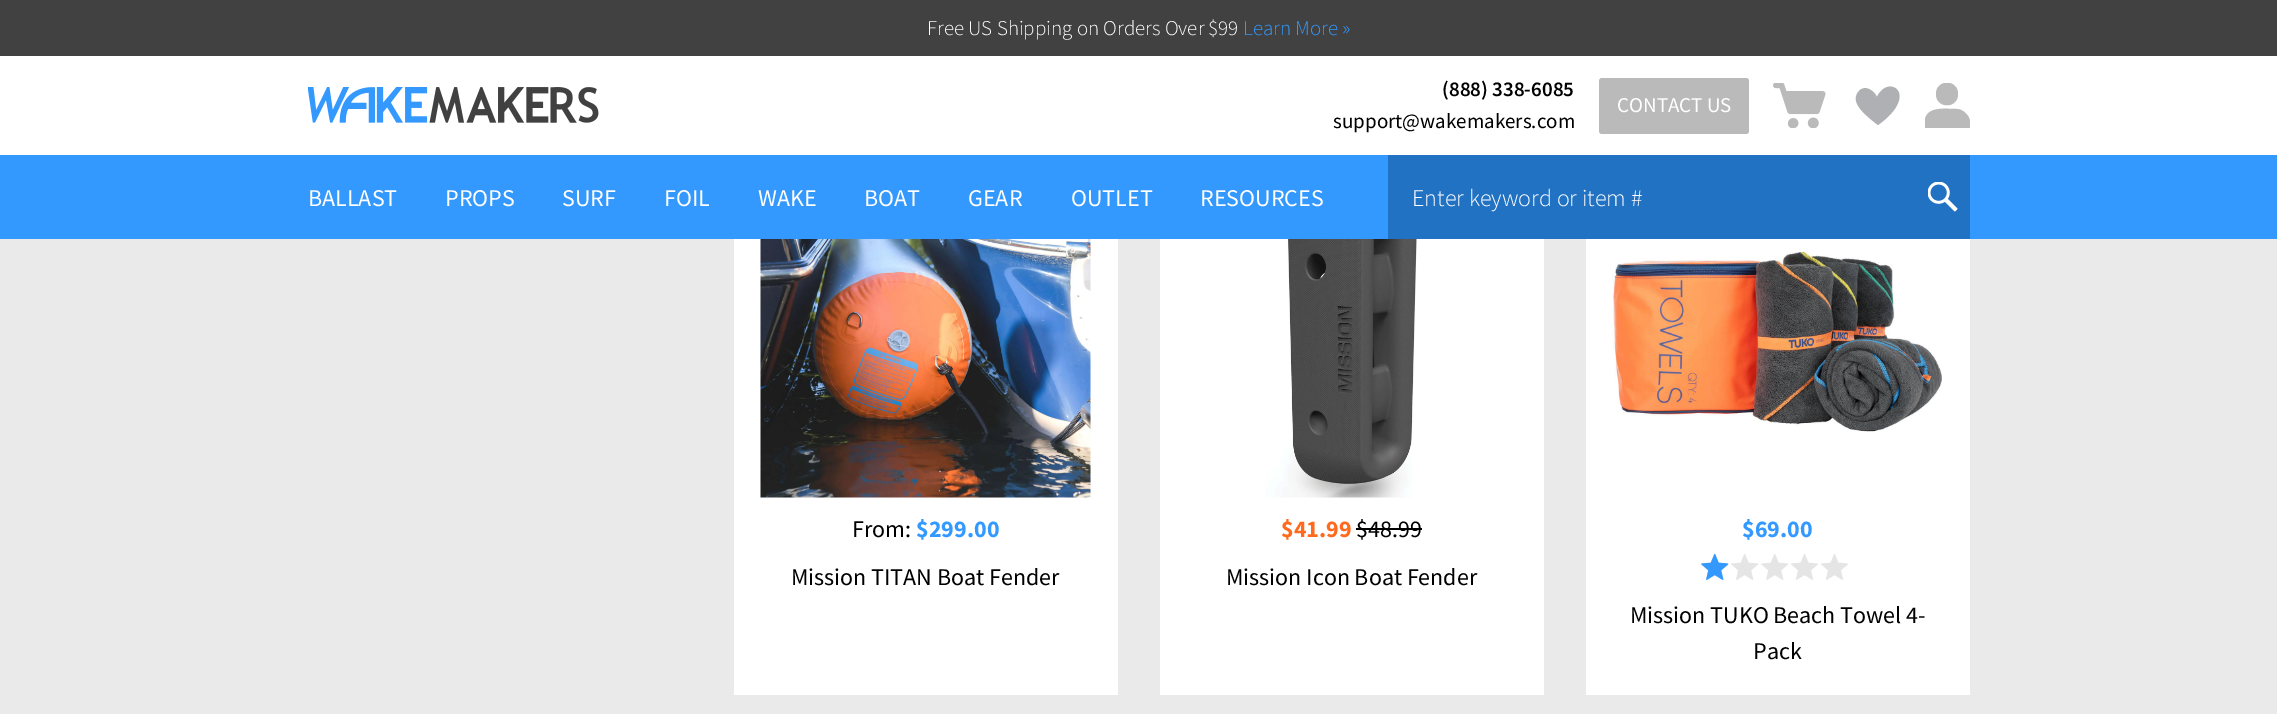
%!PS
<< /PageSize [2277 714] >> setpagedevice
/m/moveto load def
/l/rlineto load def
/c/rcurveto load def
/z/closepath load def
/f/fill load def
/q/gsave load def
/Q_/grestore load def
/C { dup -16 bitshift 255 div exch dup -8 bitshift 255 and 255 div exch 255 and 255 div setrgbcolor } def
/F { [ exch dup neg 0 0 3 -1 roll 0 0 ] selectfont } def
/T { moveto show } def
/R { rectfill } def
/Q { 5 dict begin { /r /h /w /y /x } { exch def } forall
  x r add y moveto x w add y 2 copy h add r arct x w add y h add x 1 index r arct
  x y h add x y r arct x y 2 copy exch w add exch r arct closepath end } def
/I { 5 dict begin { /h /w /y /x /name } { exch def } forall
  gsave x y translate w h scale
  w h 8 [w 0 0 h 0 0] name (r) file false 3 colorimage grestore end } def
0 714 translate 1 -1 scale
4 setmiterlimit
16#EAEAEA C
0 0 2277 714 R
16#FFFFFF C
0 56 2277 99 R
16#414141 C
0 0 2277 56 R
/SourceSansPro-Light 21 F
16#FFFFFF C
(Free US Shipping on Orders Over $99) 927 35 T
16#3399FF C
(Learn More ») 1243 35 T
(1.rgb) 308 87 291 36 I
/SourceSansPro-SemiBold 21 F
16#000000 C
(\(888\) 338-6085) 1442 96 T
/SourceSansPro-Regular 21 F
(support@wakemakers.com) 1333 128 T
16#BABABA C
1599 78 150 56 3 Q f
16#FFFFFF C
(CONTACT US) 1617 112 T
(2.rgb) 1773 83 53 45 I
16#AFB0B3 C
1877 97 m -4 -8 -13 -12 -18 -6 c -9 10 2 21 19 34 c 43 -31 10 -52 -1 -28 c z f
q
1925 83 45 45 rectclip
16#BABABA C
1936 94 m 0 15 22 15 22 0 c 0 -15 -22 -15 -22 0 c z 1957 109 m -11 0 -29 -3 -32 10 c -1 9 l 46 0 l 0 -6 l 0 -7 -8 -13 -13 -13 c z f
Q_
16#3399FF C
0 155 2277 84 R
/SourceSansPro-Regular 24 F
16#FFFFFF C
(BALLAST) 308 206 T
(PROPS) 445 206 T
(SURF) 562 206 T
(FOIL) 664 206 T
(WAKE) 758 206 T
(BOAT) 864 206 T
(GEAR) 968 206 T
(OUTLET) 1071 206 T
(RESOURCES) 1200 206 T
16#2172C3 C
1388 155 582 84 R
/SourceSansPro-Light 24 F
16#FFFFFF C
(Enter keyword or item #) 1412 206 T
(3.rgb) 1928 182 30 30 I
734 239 384 456 R
(4.rgb) 760 239 331 259 I
/SourceSansPro-Regular 24 F
16#000000 C
(From:) 852 537 T
/SourceSansPro-Bold 24 F
16#3399FF C
($299.00) 916 537 T
/SourceSansPro-Regular 24 F
16#000000 C
(Mission TITAN Boat Fender) 791 585 T
16#FFFFFF C
1160 239 384 456 R
(5.rgb) 1265 239 152 259 I
/SourceSansPro-Bold 24 F
16#FF6A1E C
($41.99) 1281 537 T
/SourceSansPro-Regular 24 F
16#000000 C
($48.99) 1356 537 T
1356 528 66 2 R
(Mission Icon Boat Fender) 1226 585 T
16#FFFFFF C
1586 239 384 456 R
(6.rgb) 1612 251 330 181 I
/SourceSansPro-Bold 24 F
16#3399FF C
($69.00) 1742 537 T
(8.rgb) 1701 554 147 26 I
(7.rgb) 1701 553 28 27 I
/SourceSansPro-Regular 24 F
16#000000 C
(Mission TUKO Beach Towel 4-) 1630 623 T
(Pack) 1753 659 T
showpage
